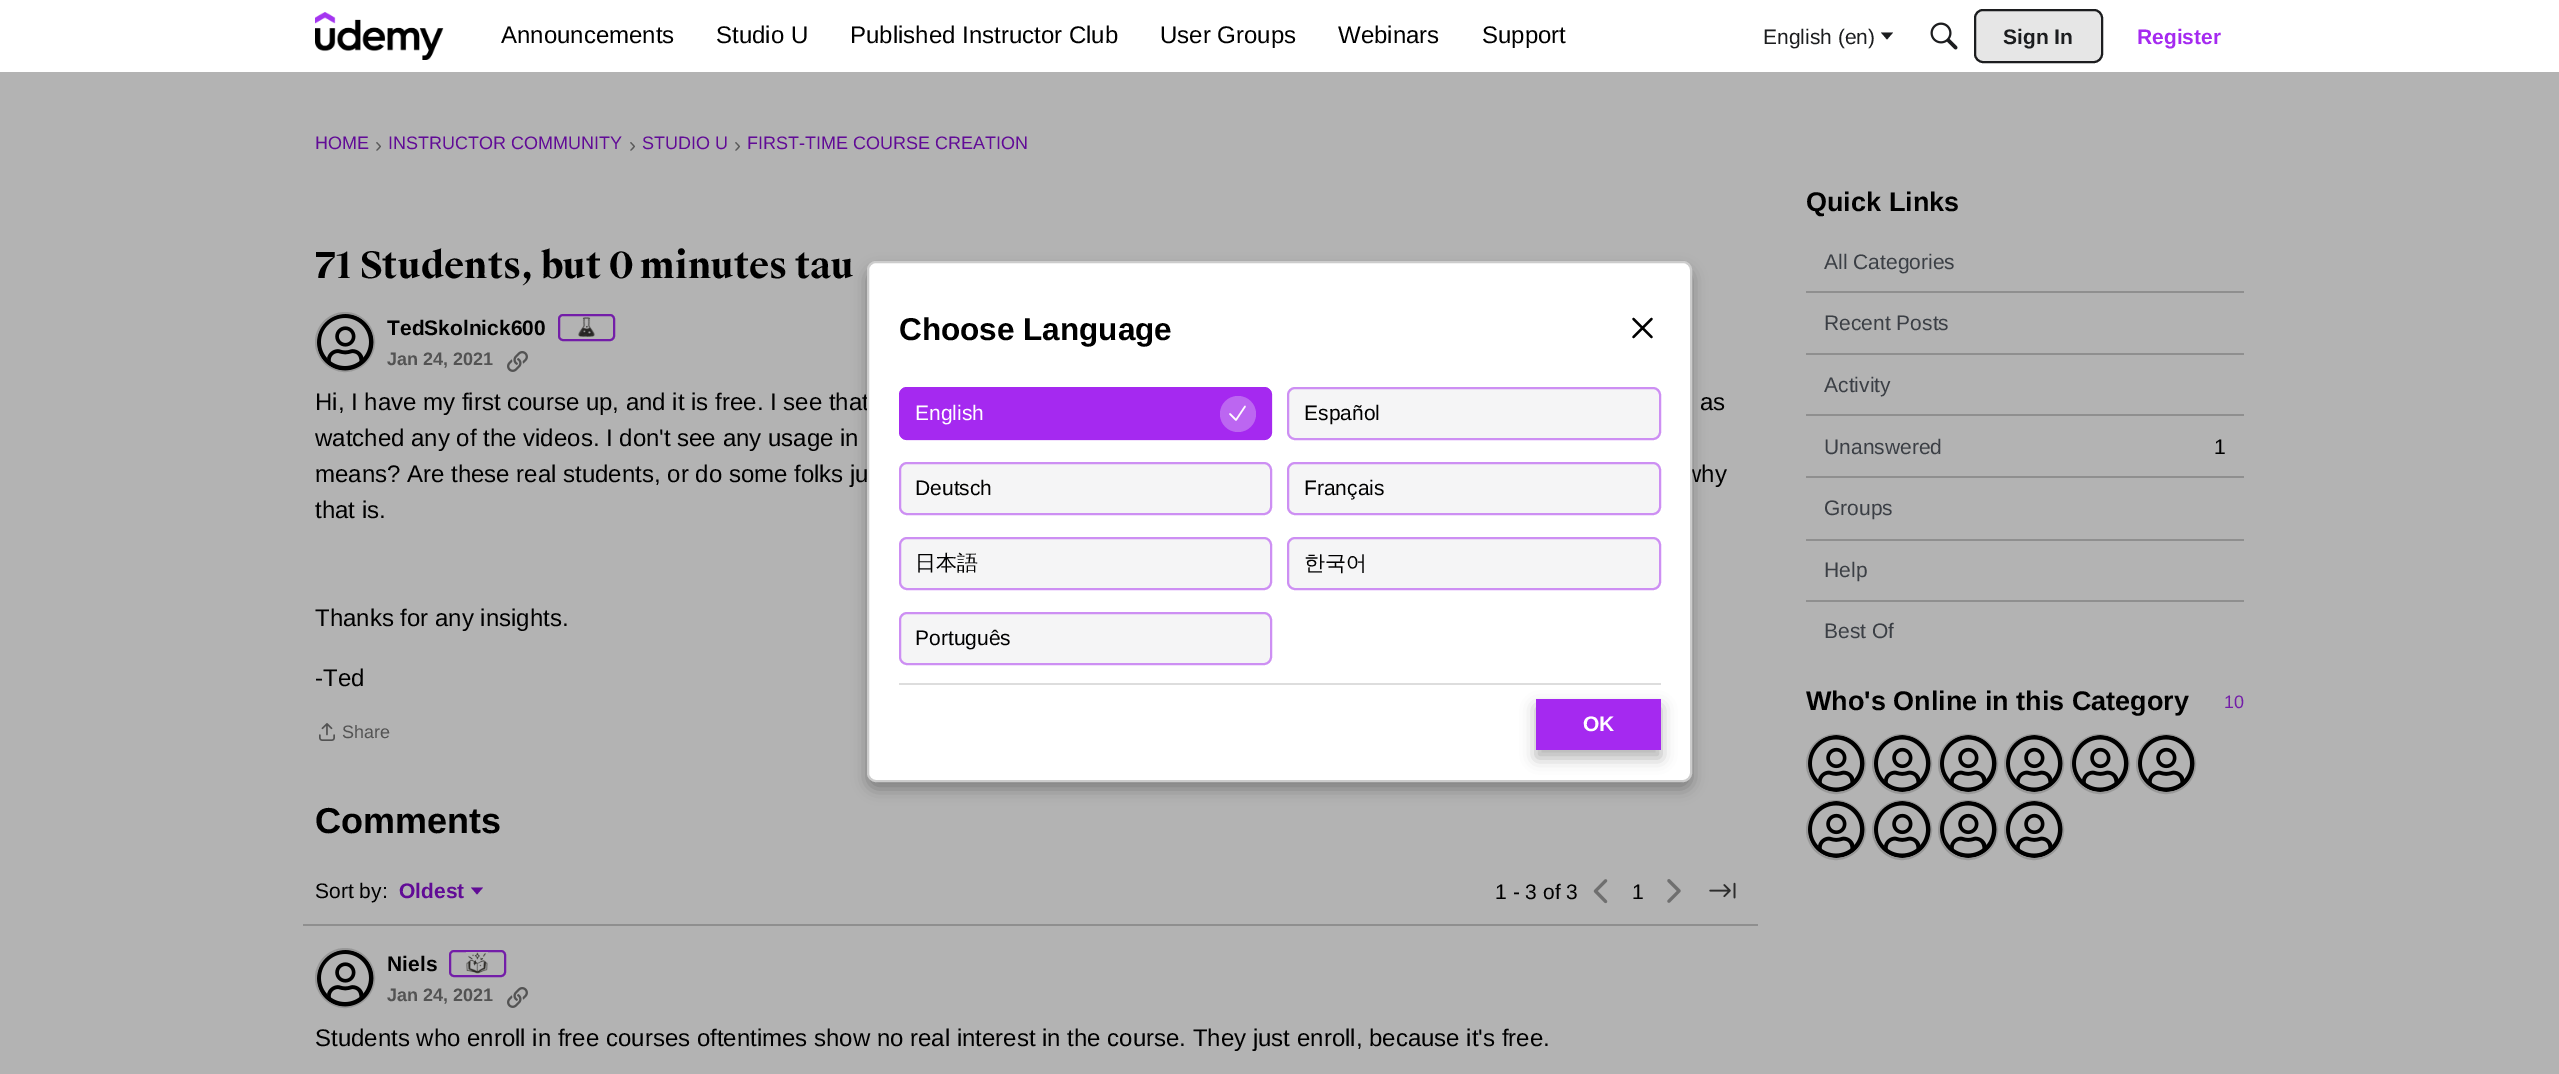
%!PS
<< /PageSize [2559 1074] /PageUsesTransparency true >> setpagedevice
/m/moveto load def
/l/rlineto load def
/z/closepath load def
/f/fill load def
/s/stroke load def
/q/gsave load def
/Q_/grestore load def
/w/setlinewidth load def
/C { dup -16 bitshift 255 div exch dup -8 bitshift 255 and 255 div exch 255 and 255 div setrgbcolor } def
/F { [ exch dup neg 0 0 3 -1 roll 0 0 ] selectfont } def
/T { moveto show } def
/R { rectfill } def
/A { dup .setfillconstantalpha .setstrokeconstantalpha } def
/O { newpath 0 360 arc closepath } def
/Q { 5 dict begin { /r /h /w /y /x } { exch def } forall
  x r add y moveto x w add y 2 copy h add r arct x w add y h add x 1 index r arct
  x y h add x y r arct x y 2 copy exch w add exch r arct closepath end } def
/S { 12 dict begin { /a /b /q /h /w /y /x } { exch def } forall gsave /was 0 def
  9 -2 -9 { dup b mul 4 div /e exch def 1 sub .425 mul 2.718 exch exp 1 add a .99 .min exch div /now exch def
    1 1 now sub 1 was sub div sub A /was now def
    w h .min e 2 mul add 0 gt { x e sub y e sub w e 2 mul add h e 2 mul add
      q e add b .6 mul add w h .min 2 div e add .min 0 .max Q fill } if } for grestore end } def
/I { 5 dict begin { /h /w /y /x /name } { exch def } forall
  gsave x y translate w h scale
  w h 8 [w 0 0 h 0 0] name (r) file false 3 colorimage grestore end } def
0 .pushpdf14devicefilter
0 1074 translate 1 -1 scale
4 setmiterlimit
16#B3B3B3 C
0 0 2559 1074 R
16#FFFFFF C
0 0 2559 72 R
(1.rgb) 315 12 129 48 I
/LiberationSans-Regular 24 F
16#000000 C
(Announcements) 501 43 T
(Studio U) 716 43 T
(Published Instructor Club) 850 43 T
(User Groups) 1160 43 T
(Webinars) 1338 43 T
(Support) 1482 43 T
/LiberationSans-Regular 21 F
16#1C1D1F C
(English \(en\)) 1763 44 T
1881 32.5 m 12 0 l -6 7 l z f
(2.rgb) 1930 22 28 28 I
16#E6E6E6 C
1975 10 127 52 8 Q q f Q_
16#1C1D1F C
2 w
s
/LiberationSans-Bold 21 F
(Sign In) 2003 44 T
16#A529F0 C
(Register) 2137 44 T
/LiberationSans-Regular 18 F
16#610B96 C
(HOME) 315 149 T
/LiberationSans-Regular 21 F
16#5A5A5A C
(›) 375 152 T
/LiberationSans-Regular 18 F
16#610B96 C
(INSTRUCTOR COMMUNITY) 388 149 T
/LiberationSans-Regular 21 F
16#5A5A5A C
(›) 629 152 T
/LiberationSans-Regular 18 F
16#610B96 C
(STUDIO U) 642 149 T
/LiberationSans-Regular 21 F
16#5A5A5A C
(›) 734 152 T
/LiberationSans-Regular 18 F
16#610B96 C
(FIRST-TIME COURSE CREATION) 747 149 T
/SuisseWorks-Bold 36 F
16#000000 C
(71 Students, but 0 minutes tau) 315 278 T
16#989898 C
345 342 29 O s
(3.rgb) 317 314 57 57 I
/LiberationSans-Bold 21 F
16#000000 C
(TedSkolnick600) 387 335 T
16#731DA8 C
559 315 55 25 4 Q s
(4.rgb) 578 317 17 20 I
/LiberationSans-Bold 18 F
16#535353 C
(Jan 24, 2021) 387 365 T
(5.rgb) 507 351 21 21 I
/LiberationSans-Regular 24 F
16#000000 C
(Hi, I have my first course up, and it is free. I see that) 315 410 T
(as) 1700 410 T
(watched any of the videos. I don't see any usage in) 315 446 T
(means? Are these real students, or do some folks ju) 315 482 T
(why) 1684 482 T
(that is.) 315 518 T
(Thanks for any insights.) 315 626 T
(-Ted) 315 686 T
(6.rgb) 319 723 16 18 I
/LiberationSans-Regular 18 F
16#535353 C
(Share) 342 738 T
/LiberationSans-Bold 36 F
16#000000 C
(Comments) 315 833 T
/LiberationSans-Regular 21 F
(Sort by:) 315 898 T
/LiberationSans-Bold 21 F
16#610B96 C
(Oldest) 399 898 T
471 887.5 m 12 0 l -6 7 l z f
/LiberationSans-Regular 21 F
16#000000 C
(1 - 3 of 3) 1495 899 T
(7.rgb) 1593 879 15 25 I
(1) 1632 899 T
(8.rgb) 1667 879 14 24 I
(9.rgb) 1709 882 27 17 I
16#8F8F8F C
303 924 1455 2 R
16#989898 C
345 978 29 O s
(3.rgb) 317 950 57 57 I
/LiberationSans-Bold 21 F
16#000000 C
(Niels) 387 971 T
16#731DA8 C
450 951 55 25 4 Q s
(10.rgb) 466 952 22 22 I
/LiberationSans-Bold 18 F
16#535353 C
(Jan 24, 2021) 387 1001 T
(5.rgb) 507 987 21 21 I
/LiberationSans-Regular 24 F
16#000000 C
(Students who enroll in free courses oftentimes show no real interest in the course. They just enroll, because it's free.) 315 1046 T
/LiberationSans-Bold 27 F
(Quick Links) 1806 211 T
16#8F8F8F C
1806 291 438 2 R
/LiberationSans-Regular 21 F
16#3B3F45 C
(All Categories) 1824 269 T
16#8F8F8F C
1806 353 438 2 R
16#3B3F45 C
(Recent Posts) 1824 330 T
16#8F8F8F C
1806 414 438 2 R
16#3B3F45 C
(Activity) 1824 392 T
16#8F8F8F C
1806 476 438 2 R
16#3B3F45 C
(Unanswered) 1824 454 T
16#000000 C
(1) 2214 454 T
16#8F8F8F C
1806 539 438 2 R
16#3B3F45 C
(Groups) 1824 515 T
16#8F8F8F C
1806 600 438 2 R
16#3B3F45 C
(Help) 1824 577 T
(Best Of) 1824 638 T
/LiberationSans-Bold 27 F
16#000000 C
(Who's Online in this Category) 1806 710 T
/LiberationSans-Regular 18 F
16#731DA8 C
(10) 2224 708 T
16#989898 C
1836 764 29 O s
(11.rgb) 1808 735 57 57 I
1902 764 29 O s
(11.rgb) 1874 735 57 57 I
1968 764 29 O s
(11.rgb) 1940 735 57 57 I
2034 764 29 O s
(11.rgb) 2006 735 57 57 I
2100 764 29 O s
(11.rgb) 2072 735 57 57 I
2166 764 29 O s
(11.rgb) 2138 735 57 57 I
1836 830 29 O s
(11.rgb) 1808 801 57 57 I
1902 830 29 O s
(11.rgb) 1874 801 57 57 I
1968 830 29 O s
(11.rgb) 1940 801 57 57 I
2034 830 29 O s
(11.rgb) 2006 801 57 57 I
16#000000 C
867 269 825 520 9 7.5 .3 S
16#FFFFFF C
868 262 823 519 8 Q q f Q_
16#CCCCCC C
s
/LiberationSans-Bold 31.5 F
16#000000 C
(Choose Language) 899 340 T
2.2 w
1 setlinecap
1 setlinejoin
1633.5 337 m 18 -18 l 1633.5 319 m 18 18 l s
16#A529F0 C
899 387 373 53 8 Q f
0.5 A
2 w
0 setlinecap
0 setlinejoin
900 388 371 51 7 Q s
/LiberationSans-Regular 21 F
1 A
16#FFFFFF C
(English) 915 420 T
16#BC66F1 C
1238 414 18 O f
16#FFFFFF C
1.5 w
1 setlinecap
1 setlinejoin
1230 414 m 6 6 l 9 -13.5 l s
16#F5F5F6 C
1287 387 374 53 8 Q f
0.5 A
16#A529F0 C
2 w
0 setlinecap
0 setlinejoin
1288 388 372 51 7 Q s
1 A
16#000000 C
(Español) 1304 420 T
16#F5F5F6 C
899 462 373 53 8 Q f
0.5 A
16#A529F0 C
900 463 371 51 7 Q s
1 A
16#000000 C
(Deutsch) 915 495 T
16#F5F5F6 C
1287 462 374 53 8 Q f
0.5 A
16#A529F0 C
1288 463 372 51 7 Q s
1 A
16#000000 C
(Français) 1304 495 T
16#F5F5F6 C
899 537 373 53 8 Q f
0.5 A
16#A529F0 C
900 538 371 51 7 Q s
/WenQuanYiZenHei-Medium 21 F
1 A
16#000000 C
(日本語) 915 570 T
16#F5F5F6 C
1287 537 374 53 8 Q f
0.5 A
16#A529F0 C
1288 538 372 51 7 Q s
1 A
16#000000 C
(한국어) 1304 570 T
16#F5F5F6 C
899 612 373 53 8 Q f
0.5 A
16#A529F0 C
900 613 371 51 7 Q s
/LiberationSans-Regular 21 F
1 A
16#000000 C
(Português) 915 645 T
16#DDDDDD C
899 683 762 2 R
16#000000 C
1536 707 125 51 0 7.5 .3 S
16#A529F0 C
1536 699 125 51 R
/LiberationSans-Bold 21 F
16#FFFFFF C
(OK) 1583 731 T
.poppdf14devicefilter showpage
